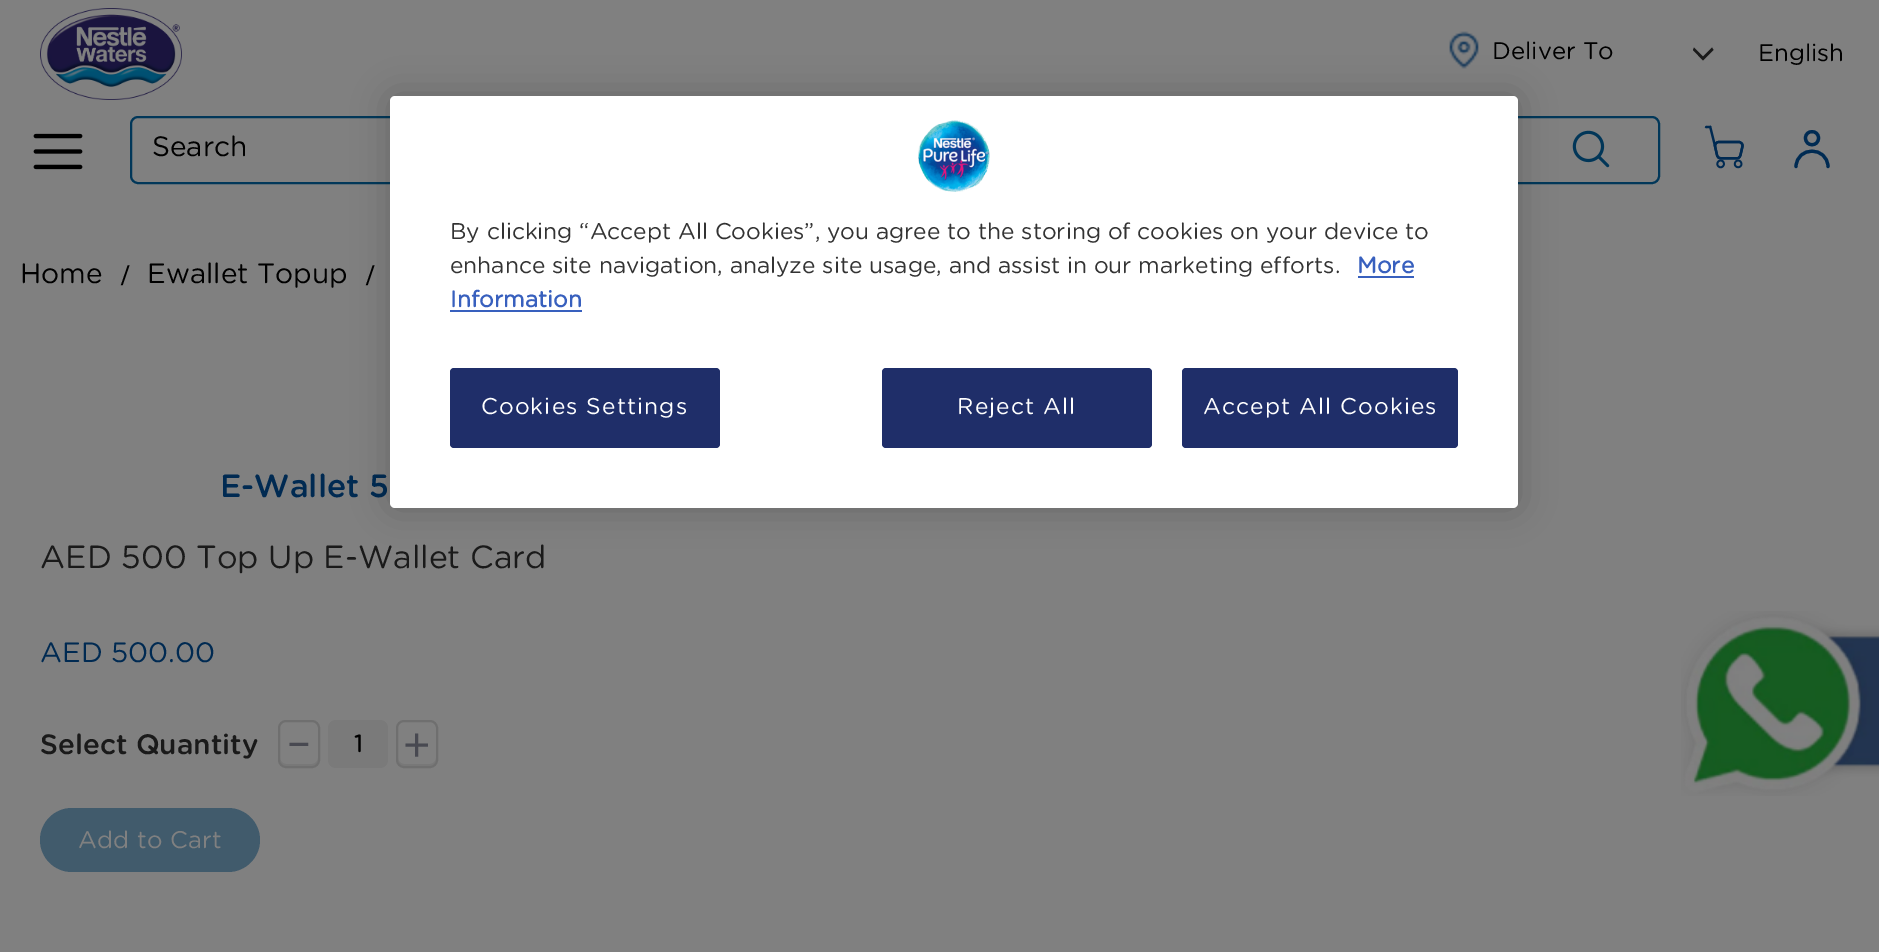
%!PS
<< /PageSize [1879 952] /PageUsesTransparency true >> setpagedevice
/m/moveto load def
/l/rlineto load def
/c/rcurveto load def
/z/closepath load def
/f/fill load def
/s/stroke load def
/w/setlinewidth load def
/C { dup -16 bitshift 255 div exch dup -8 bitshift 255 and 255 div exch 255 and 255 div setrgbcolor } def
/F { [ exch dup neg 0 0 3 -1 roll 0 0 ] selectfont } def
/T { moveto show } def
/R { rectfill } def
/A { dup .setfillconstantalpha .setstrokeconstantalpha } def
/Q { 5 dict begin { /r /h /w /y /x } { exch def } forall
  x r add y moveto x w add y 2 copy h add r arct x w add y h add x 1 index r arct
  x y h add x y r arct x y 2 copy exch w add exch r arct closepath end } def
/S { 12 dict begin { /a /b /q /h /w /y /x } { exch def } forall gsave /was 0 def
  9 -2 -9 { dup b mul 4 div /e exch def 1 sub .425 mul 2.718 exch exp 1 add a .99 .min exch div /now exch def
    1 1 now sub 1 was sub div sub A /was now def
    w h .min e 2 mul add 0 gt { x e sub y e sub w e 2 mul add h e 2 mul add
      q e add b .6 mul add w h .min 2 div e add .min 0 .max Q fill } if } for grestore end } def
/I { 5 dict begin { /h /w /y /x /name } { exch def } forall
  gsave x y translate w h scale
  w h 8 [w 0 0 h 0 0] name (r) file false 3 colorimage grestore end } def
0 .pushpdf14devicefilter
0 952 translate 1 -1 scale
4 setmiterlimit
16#808080 C
0 0 1879 952 R
(1.rgb) 40 8 142 92 I
(2.rgb) 1449 31 30 38 I
16#1A1A1A C
1703.5 60 m 10 -10 l -1.5 -2.5 l -9 9 l -9 -9 l -1 2.5 l 10 10.5 l z eofill
/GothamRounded-Regular 24 F
16#000000 C
(Deliver To) 1492 59 T
(English) 1758 61 T
16#013759 C
2 w
131 117 1528 66 7 Q s
/GothamRounded-Regular 28 F
16#000000 C
(Search) 152 156 T
(3.rgb) 1572 130 38 38 I
(4.rgb) 1704 125 40 44 I
16#002B53 C
3.2 w
1 setlinecap
1 setlinejoin
1828 166.5 m -1 -20.5 -31 -20.5 -32 0 c 1818.5 138 m 0 9 -13 9 -13 0 c 0 -8.5 13 -8.5 13 0 c z s
(5.rgb) 33 133 50 37 I
16#000000 C
(Home) 20 283 T
/LiberationSerif-Bold 30 F
(/) 121 285 T
/GothamRounded-Regular 28 F
(Ewallet Topup) 147 283 T
/LiberationSerif-Bold 30 F
(/) 366 285 T
/GothamRounded-Medium 32 F
16#002A52 C
(E-Wallet 5) 220 497 T
/GothamRounded-Regular 32 F
16#1A1A1A C
(AED 500 Top Up E-Wallet Card) 40 568 T
/GothamRounded-Regular 28 F
16#002A52 C
(AED 500.00) 40 662 T
/GothamRounded-Medium 28 F
16#1A1A1A C
(Select Quantity) 40 754 T
16#787878 C
280 758 m 0 8 3.5 8 10.5 8 c 17 0 l 7 0 10.5 0 10.5 -8 c 0 3 -3 6 -6 6 c -26 0 l -3 0 -6 -3 -6 -6 c z f
16#6F6F6F C
2 w
0 setlinecap
0 setlinejoin
279 721 40 46 7 Q s
/OpenSans-Light 80 F
16#484951 C
(-) 286 766 T
16#7A7A7A C
328 720 60 48 8 Q f
/GothamRounded-Bold 24 F
16#000000 C
(1) 354 752 T
16#787878 C
398 758 m 0 8 3.5 8 10.5 8 c 17 0 l 7 0 10.5 0 10.5 -8 c 0 3 -3 6 -6 6 c -26 0 l -3 0 -6 -3 -6 -6 c z f
16#6F6F6F C
397 721 40 46 7 Q s
/OpenSans-Regular 48 F
16#484951 C
(+) 403 762 T
16#415B6C C
40 808 220 64 32 Q f
/GothamRounded-Regular 24 F
16#808080 C
78 848 m .25 0 (Add to Cart) ashow
(6.rgb) 1681 611 198 185 I
16#000000 C
390 96 1128 412 5 18 .2 S
16#FFFFFF C
390 96 1128 412 5 Q f
(7.rgb) 918 120 72 72 I
/GothamRounded-Regular 22.75 F
16#333333 C
(By clicking “Accept All Cookies”, you agree to the storing of cookies on your device to) 450 239 T
(enhance site navigation, analyze site usage, and assist in our marketing efforts.) 450 273 T
/GothamRounded-Bold 22.75 F
16#3860BE C
(More) 1357 273 T
1358 276 56 2 R
(Information) 450 307 T
450 310 132 2 R
16#1F2E69 C
450 368 270 80 4 Q f
/GothamRounded-Regular 22.75 F
16#FFFFFF C
481 414 m 1.1 0 (Cookies Settings) ashow
16#1F2E69 C
882 368 270 80 4 Q f
16#FFFFFF C
957 414 m 1.1 0 (Reject All) ashow
16#1F2E69 C
1182 368 276 80 4 Q f
16#FFFFFF C
1203 414 m 1.1 0 (Accept All Cookies) ashow
.poppdf14devicefilter showpage
